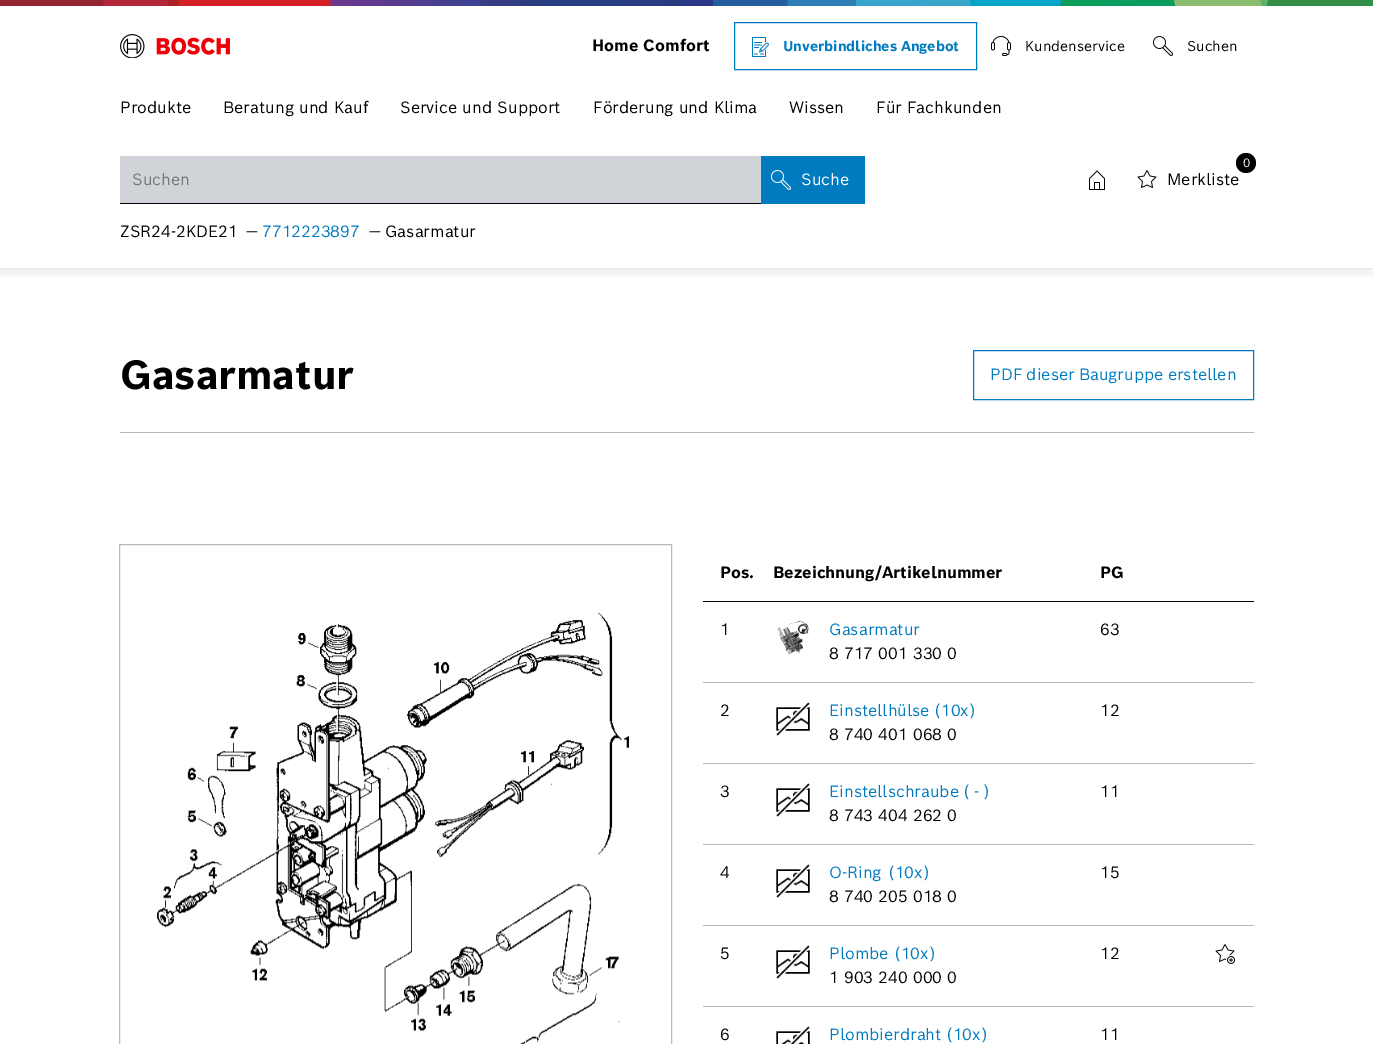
%!PS
<< /PageSize [1373 1044] /PageUsesTransparency true >> setpagedevice
/m/moveto load def
/f/fill load def
/q/gsave load def
/Q_/grestore load def
/C { dup -16 bitshift 255 div exch dup -8 bitshift 255 and 255 div exch 255 and 255 div setrgbcolor } def
/F { [ exch dup neg 0 0 3 -1 roll 0 0 ] selectfont } def
/T { moveto show } def
/R { rectfill } def
/A { dup .setfillconstantalpha .setstrokeconstantalpha } def
/O { newpath 0 360 arc closepath } def
/Q { 5 dict begin { /r /h /w /y /x } { exch def } forall
  x r add y moveto x w add y 2 copy h add r arct x w add y h add x 1 index r arct
  x y h add x y r arct x y 2 copy exch w add exch r arct closepath end } def
/S { 12 dict begin { /a /b /q /h /w /y /x } { exch def } forall gsave /was 0 def
  9 -2 -9 { dup b mul 4 div /e exch def 1 sub .425 mul 2.718 exch exp 1 add a .99 .min exch div /now exch def
    1 1 now sub 1 was sub div sub A /was now def
    w h .min e 2 mul add 0 gt { x e sub y e sub w e 2 mul add h e 2 mul add
      q e add b .6 mul add w h .min 2 div e add .min 0 .max Q fill } if } for grestore end } def
/I { 5 dict begin { /h /w /y /x /name } { exch def } forall
  gsave x y translate w h scale
  w h 8 [w 0 0 h 0 0] name (r) file false 3 colorimage grestore end } def
0 .pushpdf14devicefilter
0 1044 translate 1 -1 scale
4 setmiterlimit
16#FFFFFF C
0 0 1373 1044 R
q
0 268 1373 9 rectclip
16#000000 C
0 132 1373 136 0 8 .16 S
Q_
0 120 1373 12 R
(1.rgb) 0 0 1373 6 I
(2.rgb) 120 34 110 24 I
/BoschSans-Bold 16 F
16#000000 C
(Home Comfort) 592 51 T
16#007BC0 C
734.5 22.5 242 47 rectstroke
(3.rgb) 752 37 17 20 I
/BoschSans-Bold 14 F
783 51 m -1 0 32 (Unverbindliches Angebot) widthshow
(4.rgb) 991 36 20 20 I
/BoschSans-Regular 14 F
16#000000 C
(Kundenservice) 1025 51 T
(5.rgb) 1153 36 20 20 I
(Suchen) 1187 51 T
/BoschSans-Regular 16 F
(Produkte) 120 113 T
(Beratung und Kauf) 223 113 T
(Service und Support) 400 113 T
(Förderung und Klima) 593 113 T
(Wissen) 789 113 T
(Für Fachkunden) 876 113 T
16#D0D4D8 C
120 156 641 47 R
16#000000 C
120 203 641 1 R
16#757575 C
(Suchen) 132 185 T
16#007BC0 C
761 156 104 48 R
(6.rgb) 771 170 20 20 I
16#FFFFFF C
(Suche) 801 185 T
(7.rgb) 1089 170 16 20 I
16#000000 C
1246 163 10 O f
/BoschSans-Regular 12 F
16#FFFFFF C
(0) 1243 167 T
(8.rgb) 1137 170 20 18 I
/BoschSans-Regular 16 F
16#000000 C
(Merkliste) 1167 185 T
(ZSR24-2KDE21) 120 237 T
(—) 247 237 T
16#007BC0 C
(7712223897) 262 237 T
16#000000 C
(— Gasarmatur) 370 237 T
16#B2B9C0 C
120 432 1134 1 R
/BoschSans-Bold 40 F
16#000000 C
(Gasarmatur) 120 389 T
16#007BC0 C
973.5 350.5 280 49 rectstroke
/BoschSans-Regular 16 F
990 380 m -1 0 32 (PDF dieser Baugruppe erstellen) widthshow
16#B2B9C0 C
119.5 544.5 552 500 rectstroke
(9.rgb) 157 612 472 432 I
16#000000 C
703 601 551 1 R
/BoschSans-Bold 16 F
(Pos.) 720 578 T
(Bezeichnung/Artikelnummer) 773 578 T
(PG) 1100 578 T
16#B2B9C0 C
703 682 551 1 R
/BoschSans-Regular 16 F
16#000000 C
(1) 720 635 T
(10.rgb) 777 620 32 35 I
16#007BC0 C
(Gasarmatur) 829 635 T
16#000000 C
(8 717 001 330 0) 829 659 T
(63) 1100 635 T
16#B2B9C0 C
703 763 551 1 R
16#000000 C
(2) 720 716 T
(11.rgb) 776 702 34 34 I
16#007BC0 C
829 716 m -1 0 32 (Einstellhülse \(10x\)) widthshow
16#000000 C
(8 740 401 068 0) 829 740 T
(12) 1100 716 T
16#B2B9C0 C
703 844 551 1 R
16#000000 C
(3) 720 797 T
(11.rgb) 776 783 34 34 I
16#007BC0 C
829 797 m -1 0 32 (Einstellschraube \( - \)) widthshow
16#000000 C
(8 743 404 262 0) 829 821 T
(11) 1100 797 T
16#B2B9C0 C
703 925 551 1 R
16#000000 C
(4) 720 878 T
(11.rgb) 776 864 34 34 I
16#007BC0 C
829 878 m 1 0 32 (O-Ring \(10x\)) widthshow
16#000000 C
(8 740 205 018 0) 829 902 T
(15) 1100 878 T
16#B2B9C0 C
703 1006 551 1 R
16#000000 C
(5) 720 959 T
(11.rgb) 776 945 34 34 I
16#007BC0 C
(Plombe \(10x\)) 829 959 T
16#000000 C
(1 903 240 000 0) 829 983 T
(12) 1100 959 T
(12.rgb) 1215 944 20 20 I
(6) 720 1040 T
(13.rgb) 776 1026 34 18 I
16#007BC0 C
829 1040 m -1 0 32 (Plombierdraht \(10x\)) widthshow
16#000000 C
(11) 1100 1040 T
.poppdf14devicefilter showpage
